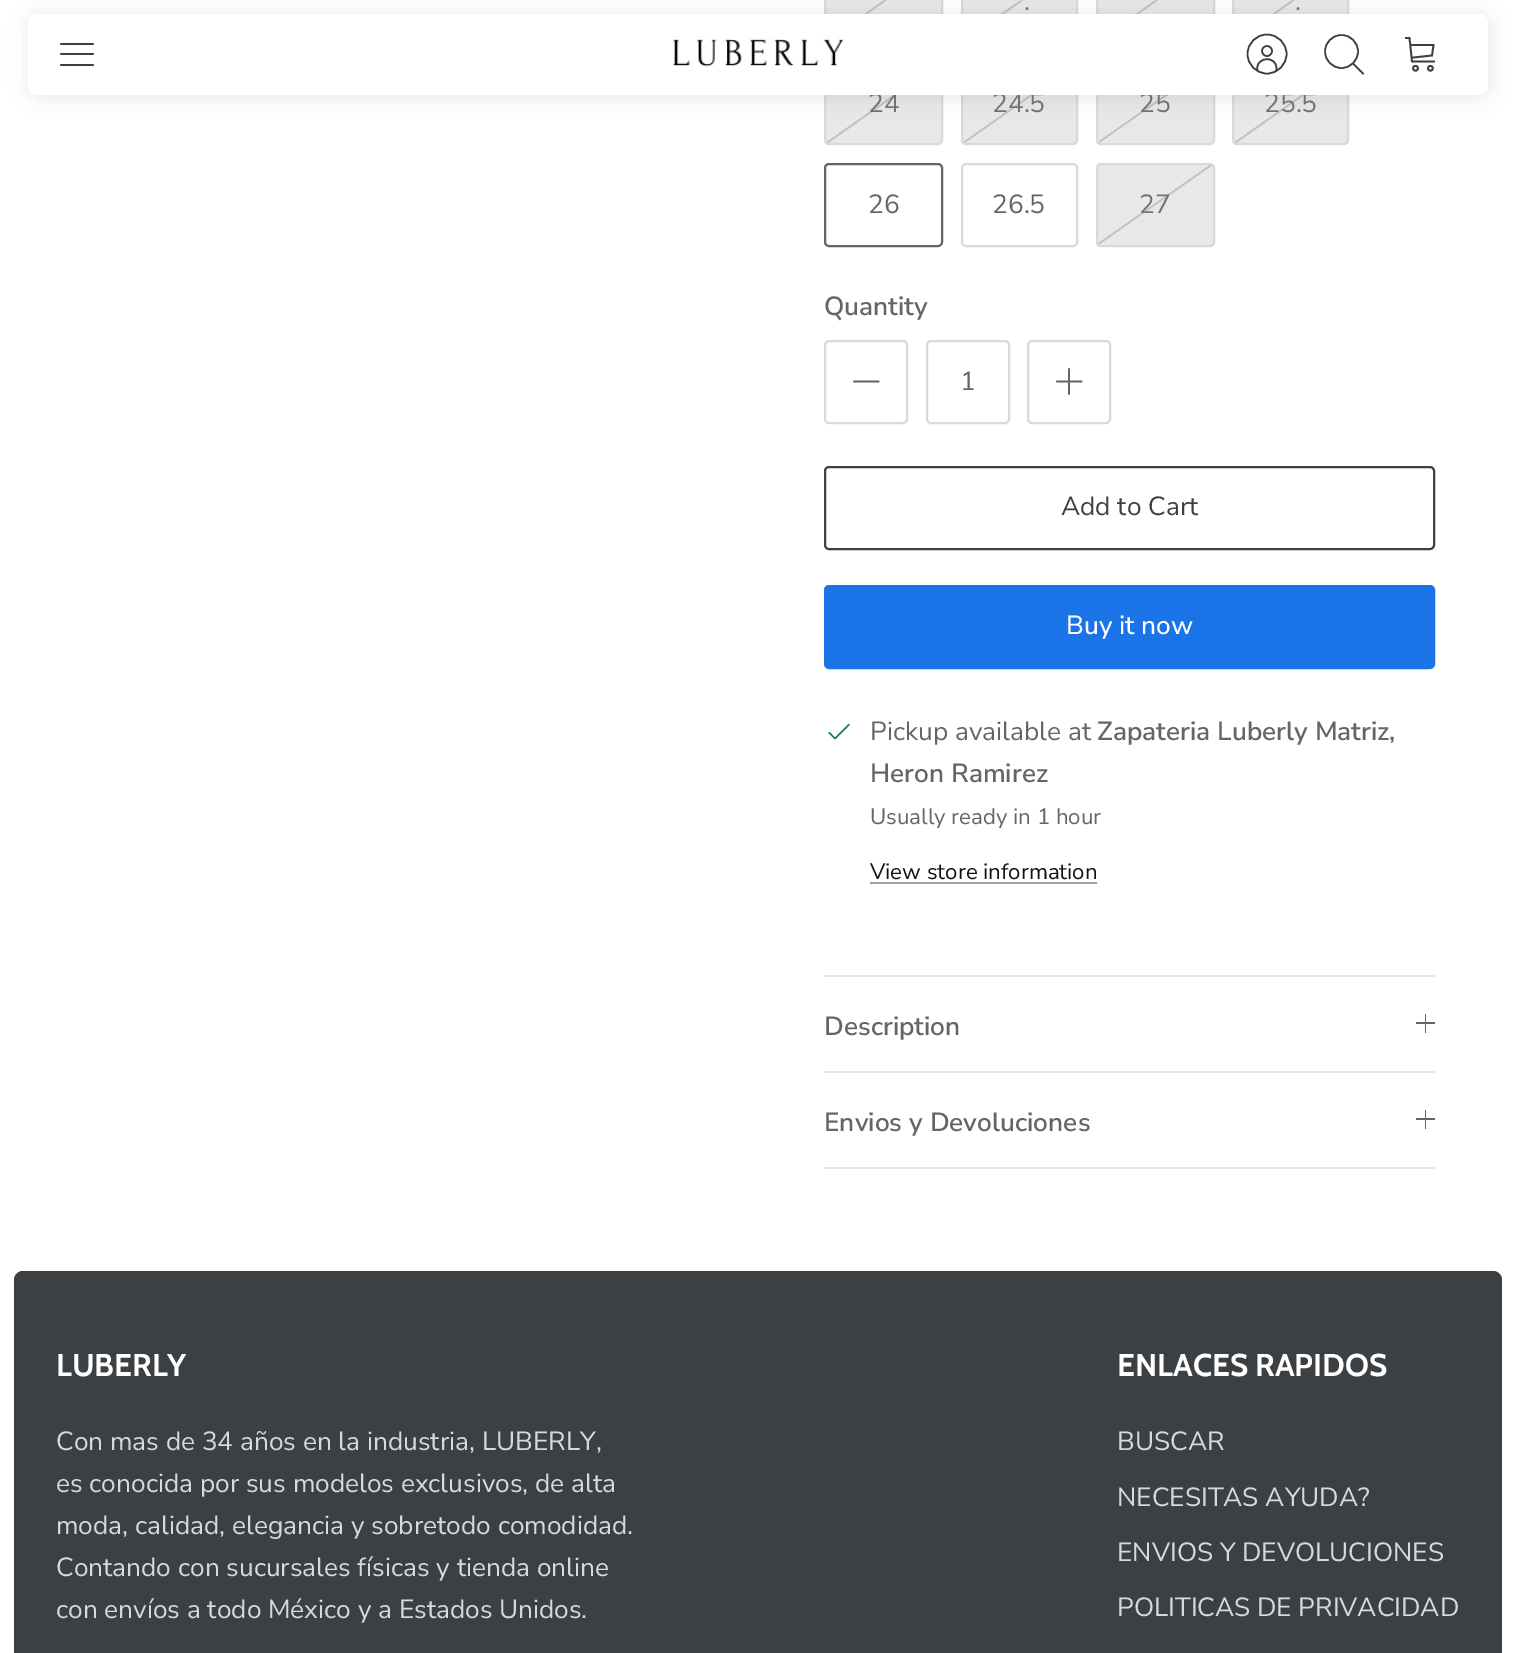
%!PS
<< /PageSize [1514 1653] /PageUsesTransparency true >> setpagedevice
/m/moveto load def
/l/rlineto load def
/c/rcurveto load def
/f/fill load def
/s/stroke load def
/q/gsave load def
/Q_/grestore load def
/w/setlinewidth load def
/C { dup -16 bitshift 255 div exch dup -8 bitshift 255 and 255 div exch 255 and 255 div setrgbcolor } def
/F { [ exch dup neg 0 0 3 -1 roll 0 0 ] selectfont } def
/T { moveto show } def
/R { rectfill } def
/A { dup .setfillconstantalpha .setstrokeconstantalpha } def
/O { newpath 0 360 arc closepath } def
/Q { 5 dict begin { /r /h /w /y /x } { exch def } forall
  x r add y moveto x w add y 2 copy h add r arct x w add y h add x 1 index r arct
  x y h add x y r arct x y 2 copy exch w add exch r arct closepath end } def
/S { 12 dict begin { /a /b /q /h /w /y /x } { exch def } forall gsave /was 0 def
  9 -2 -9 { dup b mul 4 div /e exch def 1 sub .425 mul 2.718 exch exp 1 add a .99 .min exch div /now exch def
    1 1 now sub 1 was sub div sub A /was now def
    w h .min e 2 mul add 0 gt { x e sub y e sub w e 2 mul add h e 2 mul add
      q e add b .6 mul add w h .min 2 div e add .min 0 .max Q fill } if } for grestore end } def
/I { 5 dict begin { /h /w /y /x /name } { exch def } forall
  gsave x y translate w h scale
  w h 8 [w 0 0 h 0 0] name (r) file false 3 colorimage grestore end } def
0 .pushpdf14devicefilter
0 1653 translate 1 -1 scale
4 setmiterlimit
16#FFFFFF C
0 0 1514 1653 R
16#E8E8E9 C
826 0 115 14 R
16#C0C1C3 C
1.6 w
940.5 -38.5 m -114.5 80.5 l s
16#D8D9DA C
2 w
825 -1 117 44 rectstroke
16#E8E8E9 C
963 0 113 14 R
16#C0C1C3 C
1.6 w
1077 -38.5 m -114.5 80.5 l s
16#D8D9DA C
2 w
962 -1 115 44 rectstroke
16#E8E8E9 C
1098 0 115 14 R
16#C0C1C3 C
1.6 w
1212 -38.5 m -115 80.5 l s
16#D8D9DA C
2 w
1097 -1 117 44 rectstroke
16#E8E8E9 C
1234 0 113 14 R
16#C0C1C3 C
1.6 w
1348.5 -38.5 m -114.5 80.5 l s
16#D8D9DA C
2 w
1233 -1 115 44 rectstroke
16#E8E8E9 C
824 61 119 84 5 Q f
16#C0C1C3 C
1.6 w
940.5 63 m -114.5 80.5 l s
16#D8D9DA C
2 w
825 62 117 82 4 Q s
16#E8E8E9 C
961 61 117 84 5 Q f
16#C0C1C3 C
1.6 w
1077 63 m -114.5 80.5 l s
16#D8D9DA C
2 w
962 62 115 82 4 Q s
16#E8E8E9 C
1096 61 119 84 5 Q f
q
1097 63 116 81 rectclip
16#C0C1C3 C
1.6 w
1212 63 m -115 80.5 l s
Q_
16#D8D9DA C
1097 62 117 82 4 Q s
16#E8E8E9 C
1232 61 117 84 5 Q f
16#C0C1C3 C
1.6 w
1348.5 63 m -114.5 80.5 l s
16#D8D9DA C
2 w
1233 62 115 82 4 Q s
16#000000 C
30 16 1459 80 9 10.5 .1 S
/NunitoSans-Regular 26.25 F
16#707375 C
(24) 868 112 T
(24.5) 992 112 T
(25) 1139 112 T
(25.5) 1264 112 T
16#FFFFFF C
28 14 1460 81 9 Q f
16#3C4043 C
1.8 w
1 setlinecap
1 setlinejoin
61 54 m 32 0 l 61 44 m 32 0 l 61 65 m 32 0 l s
(1.rgb) 672 36 172 31 I
1.6 w
0 setlinecap
0 setlinejoin
1276 71.5 m 1 -2.5 .5 -5 -.5 -7.5 c -5.5 -9.5 -21 -4 -18 7 c s
1267 51 5 O s
1267 54 19.5 O s
1341.5 51.5 16.5 O s
2 setlinecap
1353.5 64 m 9.5 9.5 l s
1.8 w
1406 38 m 3.5 0 l 2.5 23.5 l 22 0 l 1411 45 m 22.5 0 l -1.5 10.5 l -18.5 2 l s
0 setlinecap
1415.5 68.3 2.4 O s
1430.4 68.3 2.4 O s
16#707375 C
(.) 1024 10 T
(.) 1295 10 T
16#636669 C
2 w
825 164 117 82 4 Q s
(26) 868 213 T
16#D8D9DA C
962 164 115 82 4 Q s
16#636669 C
(26.5) 992 213 T
16#E8E8E9 C
1096 163 119 84 5 Q f
16#C0C1C3 C
1.6 w
1212 164.5 m -115 80.5 l s
16#D8D9DA C
2 w
1097 164 117 82 4 Q s
16#707375 C
(27) 1139 213 T
/NunitoSans-SemiBold 26.25 F
16#636669 C
(Quantity) 824 315 T
16#D8D9DA C
825 341 82 82 4 Q s
16#636669 C
1.8 w
1 setlinecap
1 setlinejoin
854 381.5 m 24.5 0 l s
16#D8D9DA C
2 w
0 setlinecap
0 setlinejoin
927 341 82 82 4 Q s
/NunitoSans-Regular 26.25 F
16#636669 C
(1) 960 390 T
16#D8D9DA C
1028 341 82 82 4 Q s
16#636669 C
1.8 w
1 setlinecap
1 setlinejoin
1069 369 m 0 25 l 1057 381.5 m 24.5 0 l s
16#3C4043 C
2 w
0 setlinecap
0 setlinejoin
825 467 609 82 4 Q s
(Add to Cart) 1061 515 T
16#1B73E8 C
825 586 609 82 4 Q q f Q_
s
/NunitoSans-Medium 26.25 F
16#FFFFFF C
(Buy it now) 1066 634 T
(2.rgb) 828 723 22 17 I
/NunitoSans-Regular 26.25 F
16#636669 C
(Pickup available at) 870 740 T
/NunitoSans-SemiBold 26.25 F
(Zapateria Luberly Matriz,) 1097 740 T
(Heron Ramirez) 870 782 T
/NunitoSans-Regular 22.25 F
(Usually ready in 1 hour) 870 824 T
16#121212 C
(View store information) 870 879 T
16#A0A0A0 C
870 882 227 2 R
16#E8E8E9 C
824 975 611 2 R
824 1071 611 2 R
/NunitoSans-SemiBold 26.25 F
16#636669 C
(Description) 824 1035 T
1425 1014 1 19 R
1416 1022 19 2 R
16#E8E8E9 C
824 1167 611 2 R
16#636669 C
(Envios y Devoluciones) 824 1131 T
1425 1110 1 19 R
1416 1118 19 2 R
16#3C4043 C
14 1271 1488 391 9 Q f
/Cabin-Bold 31.5 F
16#FFFFFF C
(LUBERLY) 56 1376 T
/NunitoSans-Regular 26.25 F
16#D2DBE5 C
(Con mas de 34 años en la industria, LUBERLY,) 56 1450 T
(es conocida por sus modelos exclusivos, de alta) 56 1492 T
(moda, calidad, elegancia y sobretodo comodidad.) 56 1534 T
(Contando con sucursales físicas y tienda online) 56 1576 T
(con envíos a todo México y a Estados Unidos.) 56 1618 T
/Cabin-Bold 31.5 F
16#FFFFFF C
(ENLACES RAPIDOS) 1117 1376 T
/NunitoSans-Regular 26.25 F
16#D2DBE5 C
(BUSCAR) 1117 1450 T
(NECESITAS AYUDA?) 1117 1506 T
(ENVIOS Y DEVOLUCIONES) 1117 1561 T
(POLITICAS DE PRIVACIDAD) 1117 1616 T
.poppdf14devicefilter showpage
